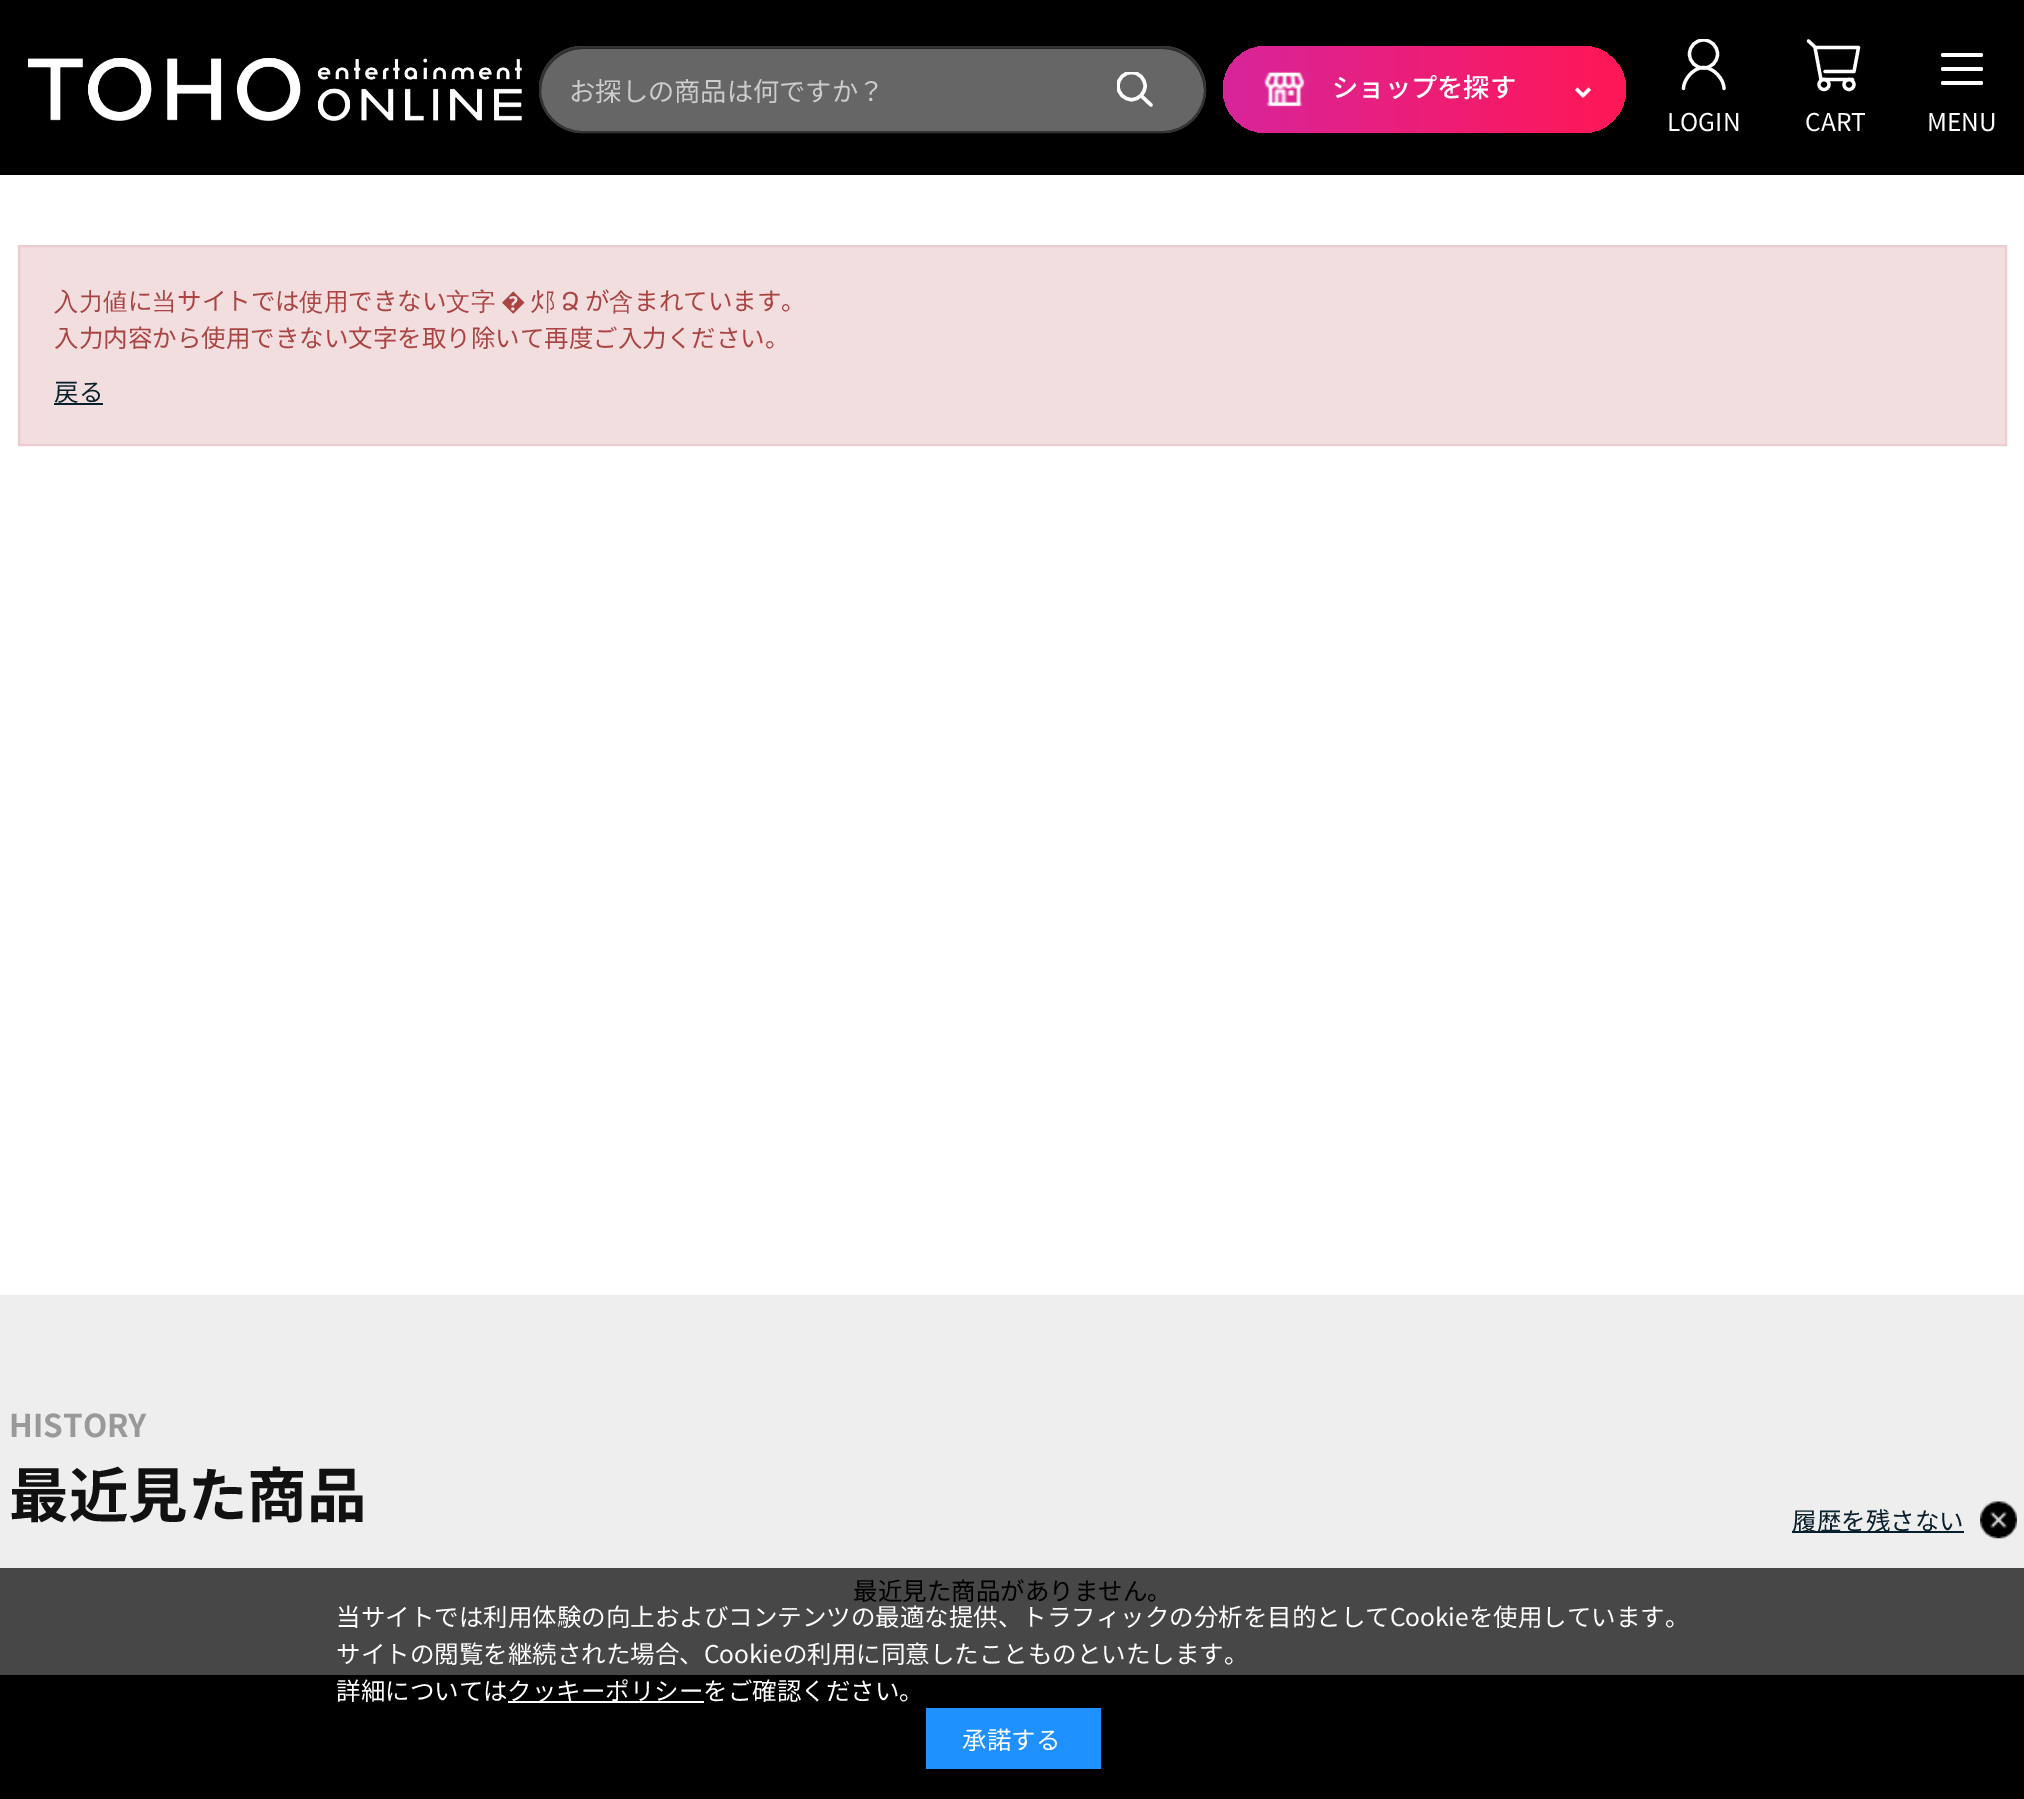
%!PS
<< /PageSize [2024 1799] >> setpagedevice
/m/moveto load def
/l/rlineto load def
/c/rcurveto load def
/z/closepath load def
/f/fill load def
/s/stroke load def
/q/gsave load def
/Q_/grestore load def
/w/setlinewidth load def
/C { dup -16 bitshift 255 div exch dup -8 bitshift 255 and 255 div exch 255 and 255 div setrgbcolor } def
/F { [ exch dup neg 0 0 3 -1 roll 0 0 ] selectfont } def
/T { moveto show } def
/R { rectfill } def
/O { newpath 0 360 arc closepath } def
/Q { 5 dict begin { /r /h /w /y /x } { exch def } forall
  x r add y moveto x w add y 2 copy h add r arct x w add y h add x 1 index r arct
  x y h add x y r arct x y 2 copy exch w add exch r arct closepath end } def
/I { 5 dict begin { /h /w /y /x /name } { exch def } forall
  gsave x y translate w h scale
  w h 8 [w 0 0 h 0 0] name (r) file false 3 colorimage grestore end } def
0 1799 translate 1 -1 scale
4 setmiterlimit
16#FFFFFF C
0 0 2024 1799 R
16#000000 C
0 0 2024 175 R
(1.rgb) 28 58 494 63 I
16#666666 C
539 46 667 87 43.5 Q f
16#292929 C
583 49 m 579 0 l 23 0 41 18 42 41 c 1 -23 -19 -43 -42 -43 c -579 0 l -23 0 -43 20 -42 43 c 1 -23 19 -41 42 -41 c z f
16#333333 C
2 w
540 47 665 85 42.5 Q s
/NotoSansJP-Thin 26.25 F
16#CCCCCC C
(お探しの商品は何ですか？) 569 101 T
q
1117 72 36 37 rectclip
16#FFFFFF C
3.4 w
1131.5 86 13.5 O s
Q_
16#FFFFFF C
3.4 w
1 setlinecap
1 setlinejoin
1141.5 96 m 9.5 9 l s
q 1223 46 403 87 43.5 Q clip newpath
<< /ShadingType 2 /ColorSpace /DeviceRGB /Coords [1223 89 1626 89] /Extend [true true] /Function << /FunctionType 2 /Domain [0 1] /C0 [.847 .145 .608] /C1 [1 .09 .333] /N 1 >> >> shfill Q_
(2.rgb) 1264 71 41 36 I
/NotoSansJP-Medium 26.25 F
(ショップを探す) 1332 97 T
1588.5 87.5 m 2.5 2.5 l -7.5 7.5 l -2.5 -2.5 l z f
1577.5 87.5 m 7.5 7.5 l -2.5 2.5 l -7.5 -7.5 l z f
q
1682 39 44 52 rectclip
3.2 w
0 setlinecap
0 setlinejoin
1703.5 54 14 O s
Q_
3.2 w
1724 88.5 m 0 -9 -10 -21 -20.5 -21 c -10 0 -20 12 -20 21 c s
/NotoSansJP-Thin 24.5 F
(LOGIN) 1667 131 T
1852.5 79.5 m -31.5 0 l -6 -32 l 43.5 0 l -4.5 24 l -29 0 l 1815 47 m -6.5 -6 l s
0 setlinecap
0 setlinejoin
1824 84.5 5 O s
1849 84.5 5 O s
(CART) 1805 131 T
1941 53 42 4 2 Q f
1941 67 42 4 2 Q f
1941 81 42 4 2 Q f
(MENU) 1927 131 T
16#F2DEDE C
19 246 m 1987 0 l 0 199 l -1987 0 l z q f Q_
16#EBCCD1 C
2 w
s
/WenQuanYiZenHei-Medium 24.5 F
16#A94442 C
(入力値) 54 310 T
/NotoSansJP-Thin 24.5 F
(に) 128 310 T
/WenQuanYiZenHei-Medium 24.5 F
(当) 152 310 T
/NotoSansJP-Thin 24.5 F
(サイトでは) 177 310 T
/WenQuanYiZenHei-Medium 24.5 F
(使用) 299 310 T
/NotoSansJP-Thin 24.5 F
(できない) 348 310 T
/WenQuanYiZenHei-Medium 24.5 F
(文字) 446 310 T
/NotoSans-Medium 24.5 F
(�) 501 310 T
/WenQuanYiZenHei-Medium 24.5 F
(邩) 531 310 T
/DejaVuSans-Regular 24.5 F
(Ձ) 561 310 T
/NotoSansJP-Thin 24.5 F
(が) 585 310 T
/WenQuanYiZenHei-Medium 24.5 F
(含) 609 310 T
/NotoSansJP-Thin 24.5 F
(まれています。) 634 310 T
(入力内容から使用できない文字を取り除いて再度ご入力ください。) 54 347 T
16#081F2C C
(戻る) 54 401 T
54 403 49 2 R
16#EEEEEE C
0 1295 2024 273 R
16#474747 C
0 1568 2024 107 R
/NotoSansJP-Bold 31.5 F
16#999999 C
(HISTORY) 9 1437 T
/NotoSansJP-Bold 59.5 F
16#111111 C
(最近見た商品) 9 1517 T
(3.rgb) 1980 1501 37 38 I
16#081F2C C
1792 1531 172 2 R
/NotoSansJP-Thin 24.5 F
(履歴を残さない) 1792 1530 T
16#000000 C
(最近見た商品がありません。) 853 1600 T
0 1675 2024 124 R
16#FFFFFF C
(当サイトでは利用体験の向上およびコンテンツの最適な提供、トラフィックの分析を目的としてCookieを使用しています。) 336 1626 T
(サイトの閲覧を継続された場合、Cookieの利用に同意したことものといたします。) 336 1663 T
(詳細については) 336 1700 T
508 1701 196 2 R
(クッキーポリシーをご確認ください。) 507 1700 T
16#1E90FF C
926 1708 175 61 R
16#FFFFFF C
(承諾する) 962 1749 T
showpage
